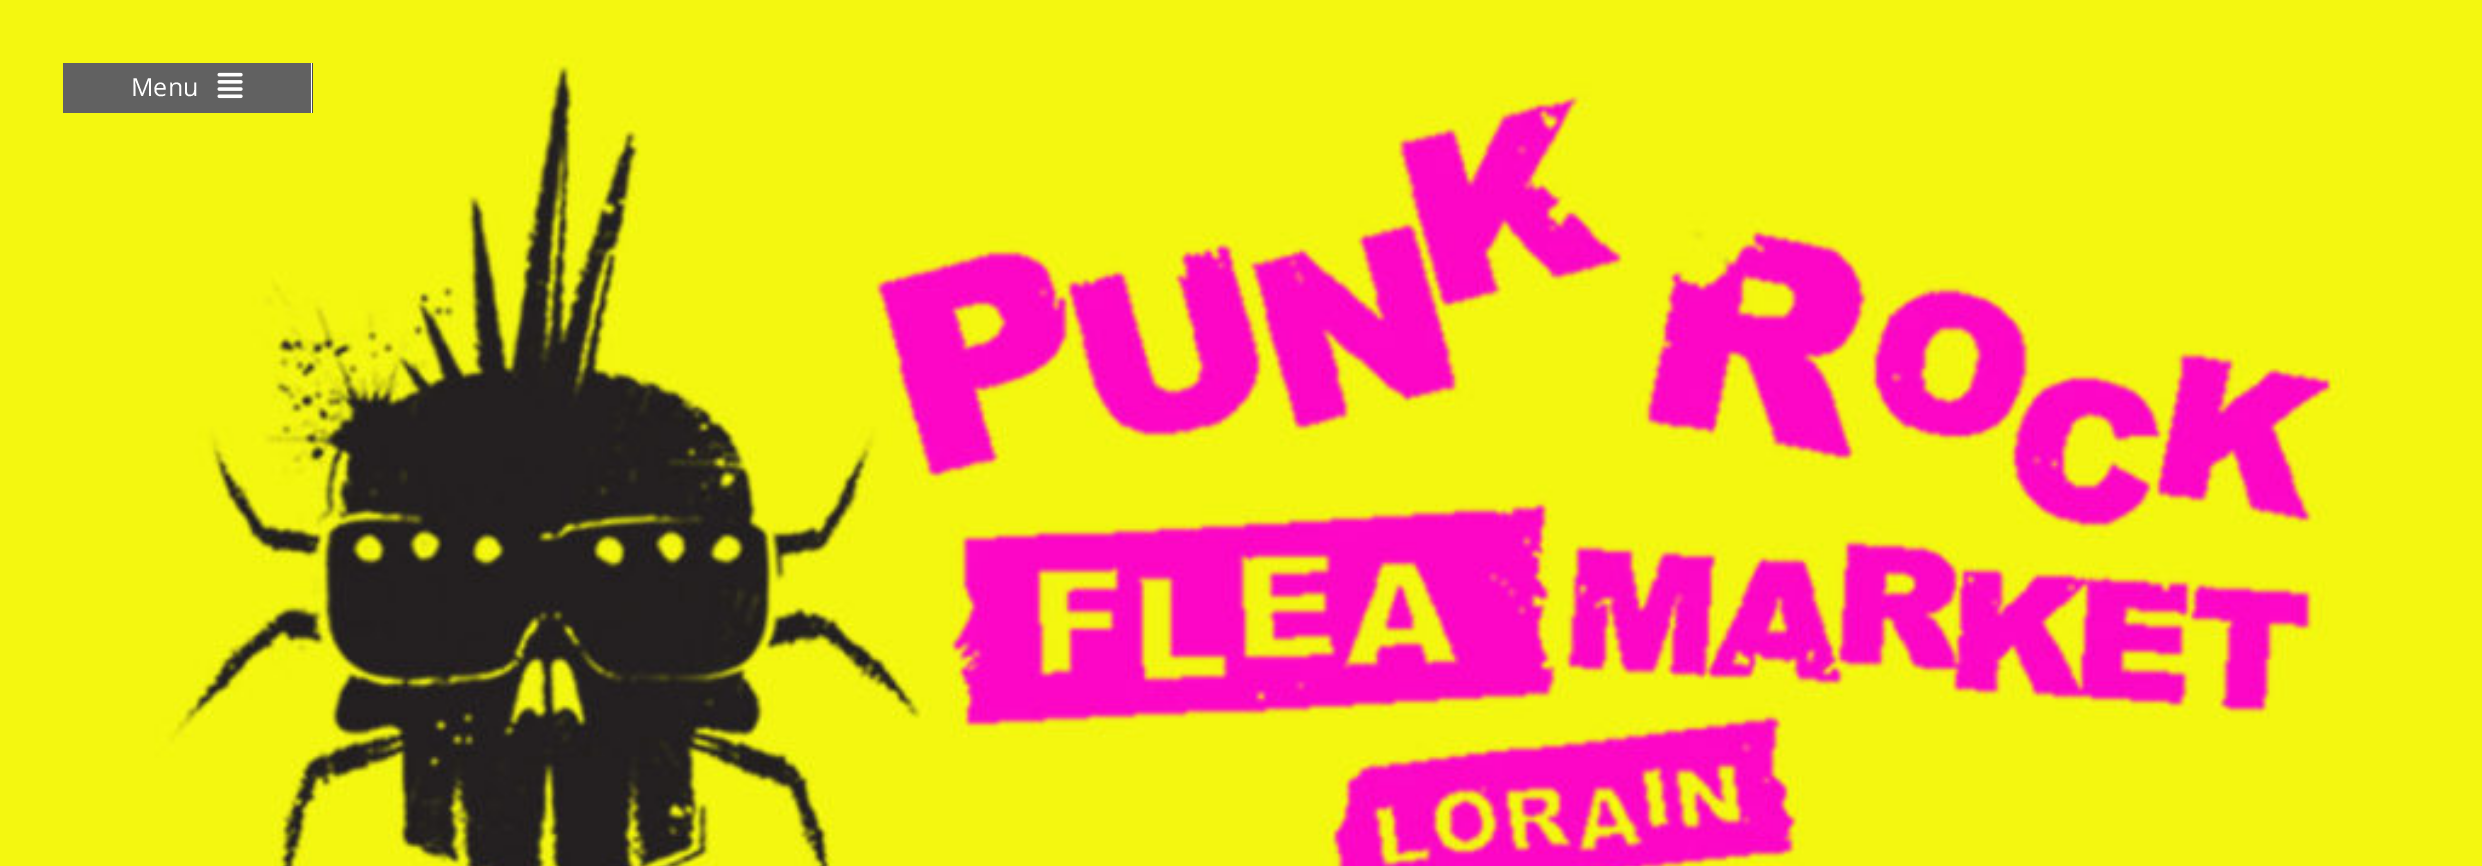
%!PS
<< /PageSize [2482 866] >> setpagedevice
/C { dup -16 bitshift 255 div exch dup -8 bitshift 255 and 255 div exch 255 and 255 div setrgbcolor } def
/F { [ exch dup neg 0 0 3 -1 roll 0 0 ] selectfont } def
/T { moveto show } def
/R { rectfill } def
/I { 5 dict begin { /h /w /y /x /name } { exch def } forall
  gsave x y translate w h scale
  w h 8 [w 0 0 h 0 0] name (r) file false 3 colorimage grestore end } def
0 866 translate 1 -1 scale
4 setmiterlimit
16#FFFFFF C
0 0 2482 866 R
(1.rgb) 0 0 2482 866 I
16#4B4B4B C
312 63 1 50 R
16#FFFFFF C
311 63 1 50 R
16#616161 C
63 63 248 50 R
/OpenSans-Regular 25 F
16#FFFFFF C
(Menu) 131 96 T
(2.rgb) 217 72 26 27 I
showpage
